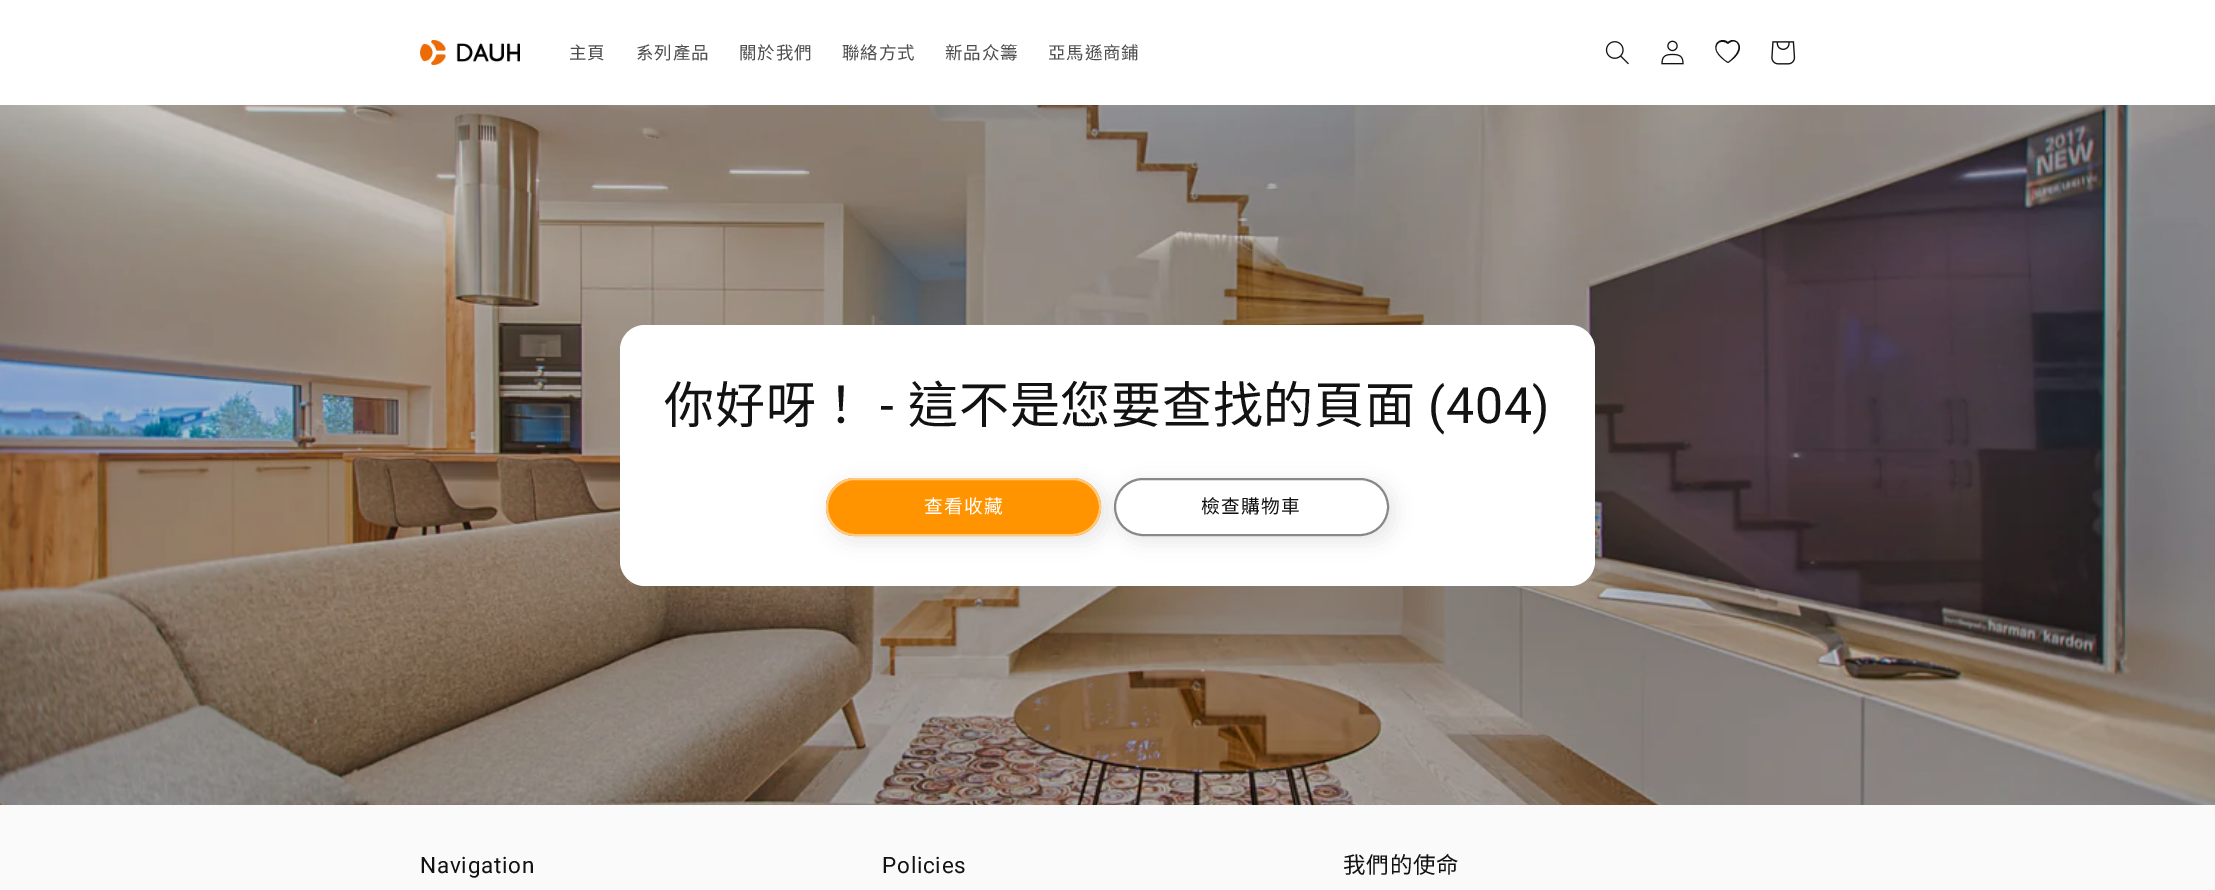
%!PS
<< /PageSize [2215 890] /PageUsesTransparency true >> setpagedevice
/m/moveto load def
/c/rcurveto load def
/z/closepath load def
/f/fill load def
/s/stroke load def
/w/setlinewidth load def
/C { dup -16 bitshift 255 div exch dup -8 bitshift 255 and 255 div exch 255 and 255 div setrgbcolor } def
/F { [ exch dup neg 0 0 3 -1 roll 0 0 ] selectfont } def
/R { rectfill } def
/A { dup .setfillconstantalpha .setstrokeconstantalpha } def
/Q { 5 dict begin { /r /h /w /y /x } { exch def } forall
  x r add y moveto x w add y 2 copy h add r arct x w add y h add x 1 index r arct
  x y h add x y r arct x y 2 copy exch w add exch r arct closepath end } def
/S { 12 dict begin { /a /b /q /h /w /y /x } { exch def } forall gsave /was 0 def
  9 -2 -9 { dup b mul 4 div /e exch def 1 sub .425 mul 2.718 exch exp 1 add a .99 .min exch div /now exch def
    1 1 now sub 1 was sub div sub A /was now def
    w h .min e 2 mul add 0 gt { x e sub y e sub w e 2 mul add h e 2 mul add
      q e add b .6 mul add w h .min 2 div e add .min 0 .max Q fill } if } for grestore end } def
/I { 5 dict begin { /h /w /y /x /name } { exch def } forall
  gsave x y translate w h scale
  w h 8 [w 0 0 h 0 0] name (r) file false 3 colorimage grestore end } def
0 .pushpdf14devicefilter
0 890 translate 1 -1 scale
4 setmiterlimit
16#FFFFFF C
0 0 2215 890 R
(1.rgb) 420 40 100 25 I
/NotoSansCJKTC-Regular 17.5 F
16#4D4D4D C
569 59 m .75 0 (主頁) ashow
636 59 m .75 0 (系列產品) ashow
739 59 m .75 0 (關於我們) ashow
842 59 m .75 0 (聯絡方式) ashow
945 59 m .75 0 (新品众籌) ashow
1048 59 m .75 0 (亞馬遜商鋪) ashow
(2.rgb) 1605 41 24 24 I
(3.rgb) 1661 40 23 25 I
16#121212 C
1728 44 m -6 -5 -14 -1 -11 7 c 2 4 6 8 11 11 c 19 -14 8 -26 0 -18 c z 1728 63 m -24 -15 -8 -28 0 -21 c 7 -7 23 6 0 21 c z f
(4.rgb) 1771 41 25 24 I
(5.rgb) 0 105 2215 700 I
16#FFFFFF C
620 325 975 261 25 Q f
/NotoSansCJKTC-Regular 50 F
16#121212 C
664 423 m .75 0 (你好呀！) ashow
/Roboto-Regular 50 F
880 423 m .75 0 (-) ashow
/NotoSansCJKTC-Regular 50 F
908 423 m .75 0 (這不是您要查找的頁面) ashow
/Roboto-Regular 50 F
1428 423 m .75 0 (\(404\)) ashow
831 483 275 58 29 9.5 .1 S
1119 483 275 58 29 9.5 .1 S
16#FF9400 C
826 478 275 58 29 Q f
826.5 478.5 274 57 28.5 Q s
0.5 A
16#FFFFFF C
2 w
827 479 273 56 28 Q s
/NotoSansCJKTC-Regular 18.75 F
1 A
924 513 m 1.25 0 (查看收藏) ashow
1114 478 275 58 29 Q f
1 w
1114.5 478.5 274 57 28.5 Q s
16#888888 C
2 w
1115 479 273 56 28 Q s
16#121212 C
1201 513 m 1.25 0 (檢查購物車) ashow
16#FAFAFA C
0 805 2215 85 R
/Roboto-Regular 22.5 F
16#121212 C
420 873 m .75 0 (Navigation) ashow
882 873 m .75 0 (Policies) ashow
/NotoSansCJKTC-Regular 22.5 F
1343 873 m .75 0 (我們的使命) ashow
.poppdf14devicefilter showpage
